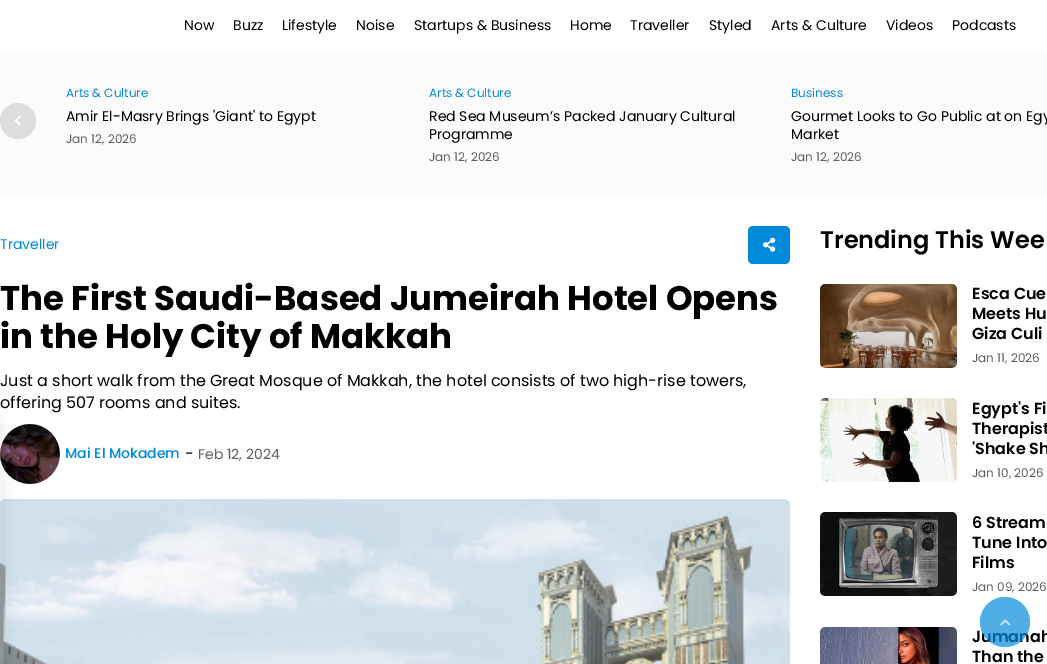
%!PS
<< /PageSize [1047 664] /PageUsesTransparency true >> setpagedevice
/f/fill load def
/C { dup -16 bitshift 255 div exch dup -8 bitshift 255 and 255 div exch 255 and 255 div setrgbcolor } def
/F { [ exch dup neg 0 0 3 -1 roll 0 0 ] selectfont } def
/T { moveto show } def
/R { rectfill } def
/A { dup .setfillconstantalpha .setstrokeconstantalpha } def
/O { newpath 0 360 arc closepath } def
/Q { 5 dict begin { /r /h /w /y /x } { exch def } forall
  x r add y moveto x w add y 2 copy h add r arct x w add y h add x 1 index r arct
  x y h add x y r arct x y 2 copy exch w add exch r arct closepath end } def
/S { 12 dict begin { /a /b /q /h /w /y /x } { exch def } forall gsave /was 0 def
  9 -2 -9 { dup b mul 4 div /e exch def 1 sub .425 mul 2.718 exch exp 1 add a .99 .min exch div /now exch def
    1 1 now sub 1 was sub div sub A /was now def
    w h .min e 2 mul add 0 gt { x e sub y e sub w e 2 mul add h e 2 mul add
      q e add b .6 mul add w h .min 2 div e add .min 0 .max Q fill } if } for grestore end } def
/I { 5 dict begin { /h /w /y /x /name } { exch def } forall
  gsave x y translate w h scale
  w h 8 [w 0 0 h 0 0] name (r) file false 3 colorimage grestore end } def
0 .pushpdf14devicefilter
0 664 translate 1 -1 scale
4 setmiterlimit
16#FFFFFF C
0 0 1047 664 R
/Poppins-Regular 14 F
16#000000 C
(Now) 184 30 T
(Buzz) 233 30 T
(Lifestyle) 282 30 T
(Noise) 356 30 T
(Startups & Business) 414 30 T
(Home) 570 30 T
(Traveller) 630 30 T
(Styled) 709 30 T
(Arts & Culture) 771 30 T
(Videos) 886 30 T
(Podcasts) 952 30 T
16#FBFBFB C
0 54 1047 142 R
16#DDDDDD C
18 121 18 O f
(1.rgb) 14 115 7 11 I
/Poppins-Regular 12 F
16#0189DB C
(Arts & Culture) 66 97 T
/Poppins-Regular 14 F
16#000000 C
(Amir El-Masry Brings 'Giant' to Egypt) 66 121 T
/Poppins-Regular 12 F
16#606060 C
(Jan 12, 2026) 66 143 T
16#0189DB C
(Arts & Culture) 429 97 T
/Poppins-Regular 14 F
16#000000 C
(Red Sea Museum’s Packed January Cultural) 429 121 T
(Programme) 429 139 T
/Poppins-Regular 12 F
16#606060 C
(Jan 12, 2026) 429 161 T
16#0189DB C
(Business) 791 97 T
/Poppins-Regular 14 F
16#000000 C
(Gourmet Looks to Go Public at on Egy) 791 121 T
(Market) 791 139 T
/Poppins-Regular 12 F
16#606060 C
(Jan 12, 2026) 791 161 T
/Poppins-Regular 14 F
16#0189DB C
(Traveller) 0 249 T
748 226 42 38 5 Q f
(2.rgb) 763 237 13 15 I
/Poppins-Bold 34 F
16#000000 C
(The First Saudi-Based Jumeirah Hotel Opens) 0 310 T
(in the Holy City of Makkah) 0 348 T
/Poppins-Regular 16 F
(Just a short walk from the Great Mosque of Makkah, the hotel consists of two high-rise towers,) 0 386 T
(offering 507 rooms and suites.) 0 408 T
(3.rgb) 0 424 60 60 I
/Poppins-Medium 14 F
16#0189DB C
(Mai El Mokadem) 65 458 T
/Poppins-Regular 16 F
16#000000 C
(-) 185 459 T
/Poppins-Regular 14 F
16#606060 C
(Feb 12, 2024) 198 459 T
(4.rgb) 0 499 790 165 I
/Poppins-SemiBold 24 F
16#000000 C
(Trending This Wee) 820 248 T
(5.rgb) 820 284 137 84 I
/Poppins-SemiBold 16 F
(Esca Cue) 972 299 T
(Meets Hu) 972 319 T
(Giza Culi) 972 339 T
/Poppins-Regular 12 F
16#606060 C
(Jan 11, 2026) 972 362 T
16#F9F9F9 C
820 382 227 1 R
(6.rgb) 820 398 137 84 I
/Poppins-SemiBold 16 F
16#000000 C
(Egypt's Fi) 972 414 T
(Therapist) 972 434 T
('Shake Sh) 972 454 T
/Poppins-Regular 12 F
16#606060 C
(Jan 10, 2026) 972 477 T
16#F9F9F9 C
820 497 227 1 R
(7.rgb) 820 512 137 84 I
/Poppins-SemiBold 16 F
16#000000 C
(6 Stream) 972 528 T
(Tune Into) 972 548 T
(Films) 972 568 T
/Poppins-Regular 12 F
16#606060 C
(Jan 09, 2026) 972 591 T
16#F9F9F9 C
820 611 227 1 R
(8.rgb) 820 627 137 37 I
/Poppins-SemiBold 16 F
16#000000 C
(Jumanah) 972 642 T
(Than the) 972 662 T
-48 422 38 227 10 12.5 .29 S
0.69 A
16#0189DB C
1005 622 25 O f
1 A
(9.rgb) 1000 619 11 7 I
.poppdf14devicefilter showpage
